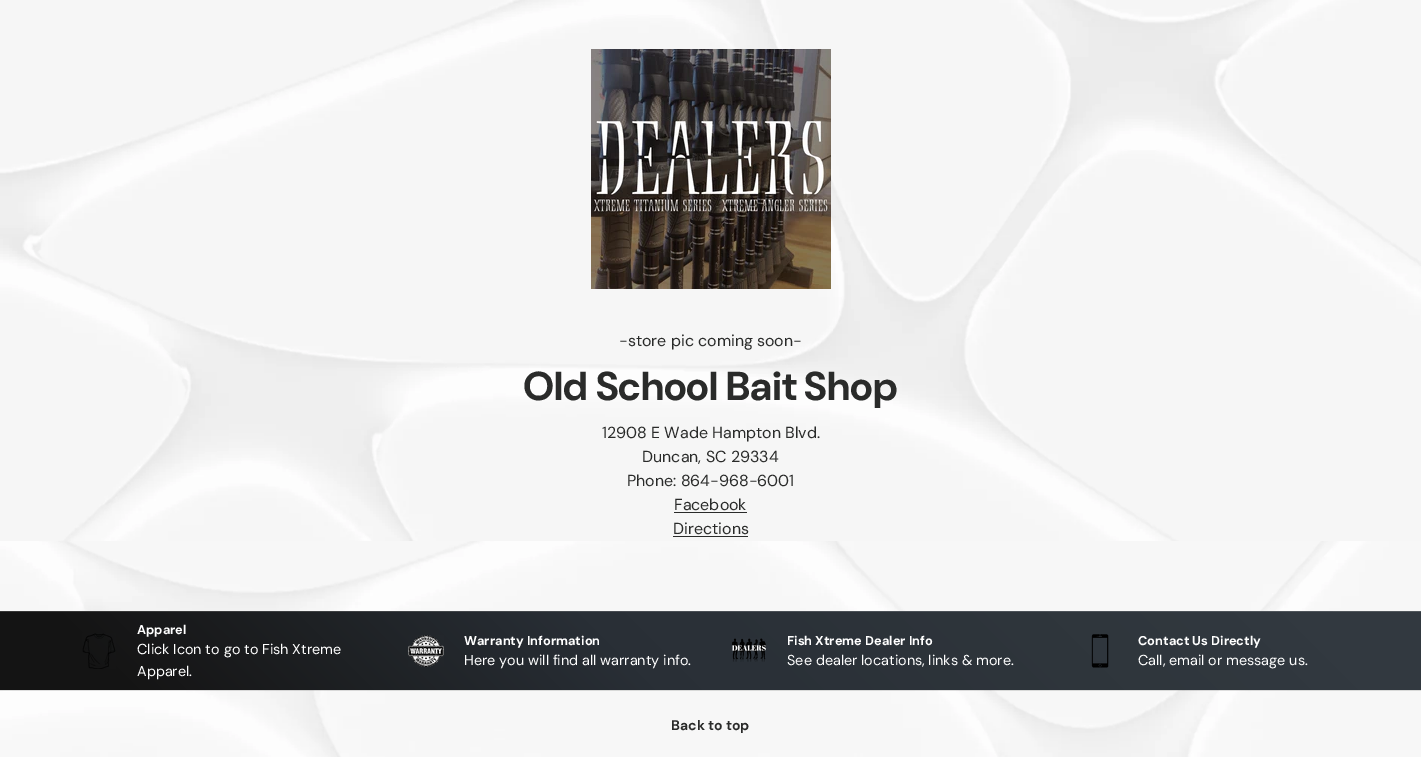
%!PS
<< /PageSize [1421 757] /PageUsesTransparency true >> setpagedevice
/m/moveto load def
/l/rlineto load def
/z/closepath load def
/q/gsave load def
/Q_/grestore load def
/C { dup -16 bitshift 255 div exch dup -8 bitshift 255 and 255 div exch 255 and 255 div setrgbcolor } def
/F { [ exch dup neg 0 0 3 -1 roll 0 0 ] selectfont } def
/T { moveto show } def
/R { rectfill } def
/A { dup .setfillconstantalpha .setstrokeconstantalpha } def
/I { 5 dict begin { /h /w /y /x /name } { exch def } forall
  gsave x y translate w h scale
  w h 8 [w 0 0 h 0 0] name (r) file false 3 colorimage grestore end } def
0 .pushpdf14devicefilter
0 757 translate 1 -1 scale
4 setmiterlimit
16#FFFFFF C
0 0 1421 757 R
(1.rgb) 0 541 1421 216 I
(2.rgb) 0 0 1421 541 I
(3.rgb) 591 49 240 240 I
/DMSans-Regular 16 F
16#2A2B2A C
(-store pic coming soon-) 619 346 T
/DMSans-Bold 40.25 F
(Old School Bait Shop) 523 400 T
/DMSans-Regular 16 F
(12908 E Wade Hampton Blvd.) 602 438 T
(Duncan, SC 29334) 642 462 T
(Phone: 864-968-6001) 627 486 T
(Facebook) 674 510 T
674 512 73 1 R
(Directions) 673 534 T
673 536 75 1 R
q 0 611 m 1421 0 l 0 1 l -1421 0 l z clip newpath
<< /ShadingType 2 /ColorSpace /DeviceRGB /Coords [1085 198 336 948] /Extend [true true] /Function << /FunctionType 3 /Domain [0 1] /Functions [<< /FunctionType 2 /Domain [0 1] /C0 [.196 .224 .251] /C1 [.196 .224 .251] /N 1 >> << /FunctionType 2 /Domain [0 1] /C0 [.196 .224 .251] /C1 [.161 .184 .212] /N 1 >> << /FunctionType 2 /Domain [0 1] /C0 [.161 .184 .212] /C1 [.078 .078 .078] /N 1 >> << /FunctionType 2 /Domain [0 1] /C0 [.078 .078 .078] /C1 [.078 .078 .078] /N 1 >>] /Bounds [.08 .56 .92] /Encode [0 1 0 1 0 1 0 1] >> >> shfill Q_
q 0 612 m 1421 0 l 0 78 l -1421 0 l z clip newpath
<< /ShadingType 2 /ColorSpace /DeviceRGB /Coords [1085 276 336 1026] /Extend [true true] /Function << /FunctionType 3 /Domain [0 1] /Functions [<< /FunctionType 2 /Domain [0 1] /C0 [.196 .224 .251] /C1 [.196 .224 .251] /N 1 >> << /FunctionType 2 /Domain [0 1] /C0 [.196 .224 .251] /C1 [.161 .184 .212] /N 1 >> << /FunctionType 2 /Domain [0 1] /C0 [.161 .184 .212] /C1 [.078 .078 .078] /N 1 >> << /FunctionType 2 /Domain [0 1] /C0 [.078 .078 .078] /C1 [.078 .078 .078] /N 1 >>] /Bounds [.08 .56 .92] /Encode [0 1 0 1 0 1 0 1] >> >> shfill Q_
0.15 A
16#FFFFFF C
0 611 1421 1 R
1 A
(4.rgb) 82 633 34 36 I
/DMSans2-Bold 12.75 F
(Apparel) 137 634 T
/DMSans2-Regular 14.4 F
(Click Icon to go to Fish Xtreme) 137 654 T
(Apparel.) 137 676 T
(5.rgb) 408 635 36 32 I
/DMSans2-Bold 12.75 F
(Warranty Information) 464 645 T
/DMSans2-Regular 14.4 F
(Here you will find all warranty info.) 464 665 T
(6.rgb) 732 638 34 24 I
/DMSans2-Bold 12.75 F
(Fish Xtreme Dealer Info) 787 645 T
/DMSans2-Regular 14.4 F
(See dealer locations, links & more.) 787 665 T
(7.rgb) 1091 634 18 34 I
/DMSans2-Bold 12.75 F
(Contact Us Directly) 1138 645 T
/DMSans2-Regular 14.4 F
(Call, email or message us.) 1138 665 T
0.15 A
16#2A2B2A C
0 690 1421 1 R
/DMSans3-Bold 14 F
1 A
(Back to top) 671 730 T
.poppdf14devicefilter showpage
